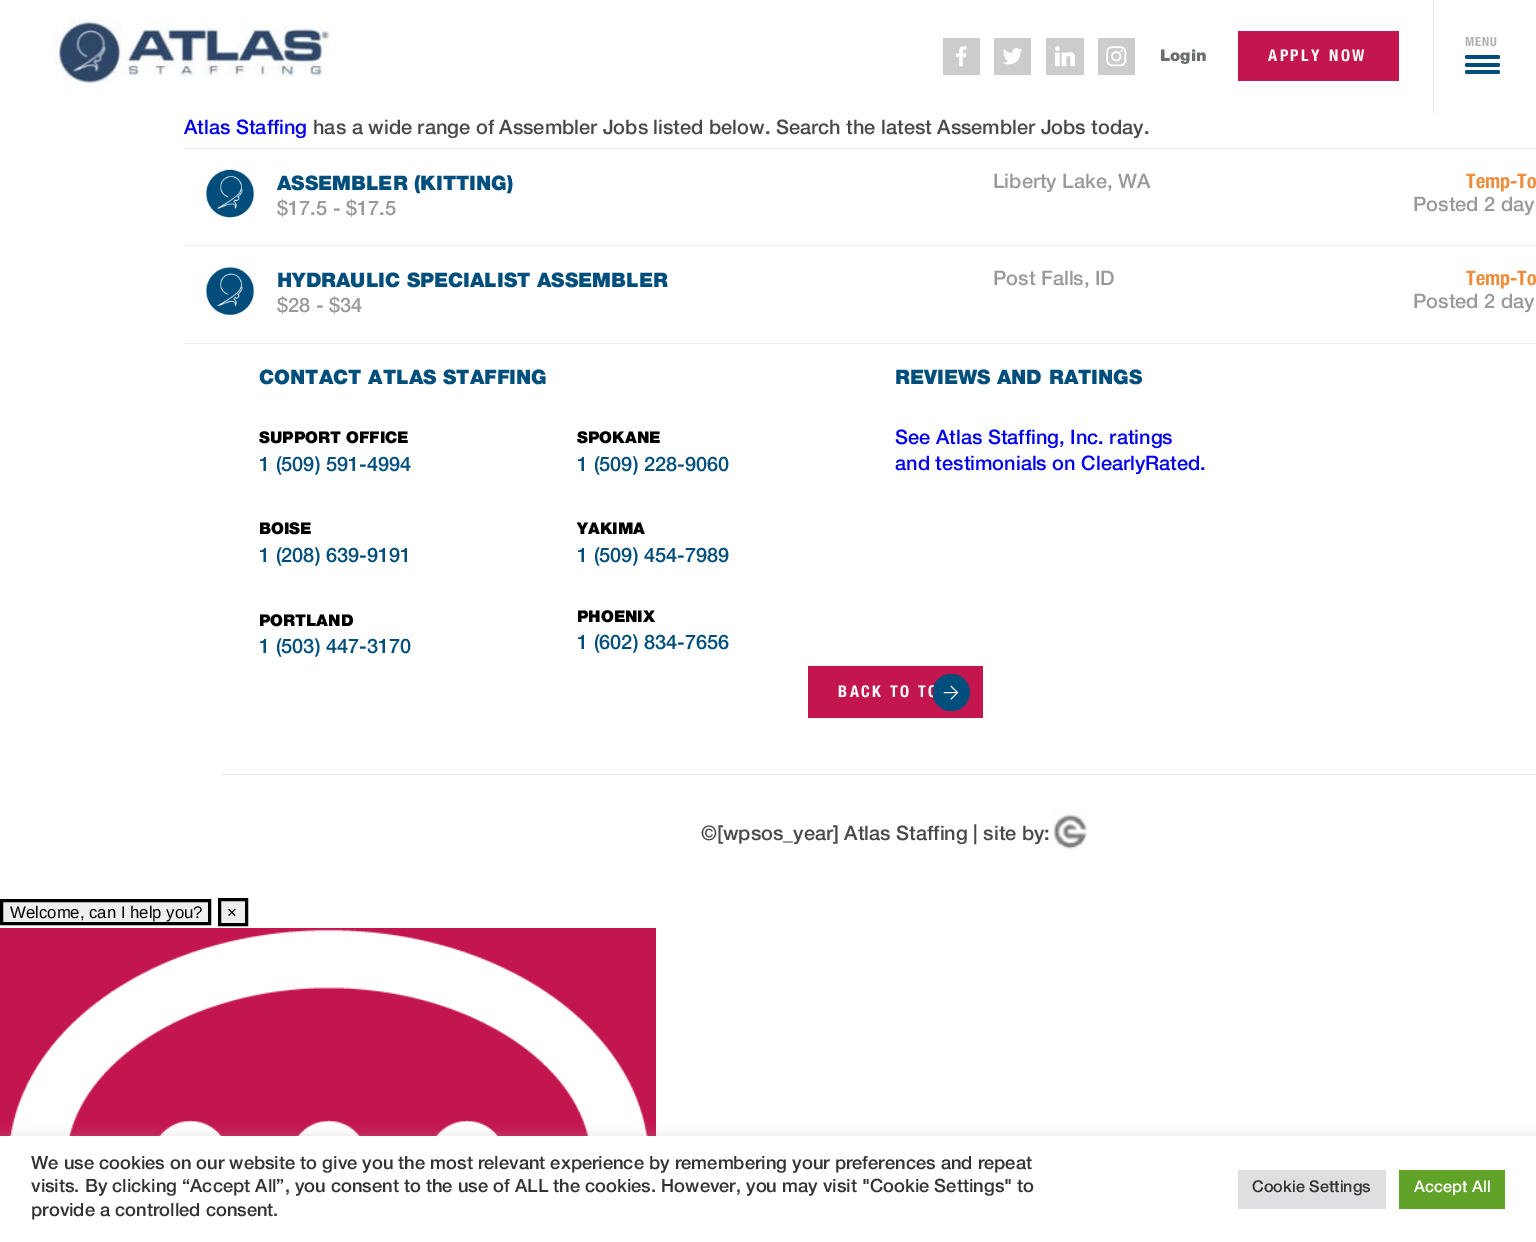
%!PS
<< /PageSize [1536 1242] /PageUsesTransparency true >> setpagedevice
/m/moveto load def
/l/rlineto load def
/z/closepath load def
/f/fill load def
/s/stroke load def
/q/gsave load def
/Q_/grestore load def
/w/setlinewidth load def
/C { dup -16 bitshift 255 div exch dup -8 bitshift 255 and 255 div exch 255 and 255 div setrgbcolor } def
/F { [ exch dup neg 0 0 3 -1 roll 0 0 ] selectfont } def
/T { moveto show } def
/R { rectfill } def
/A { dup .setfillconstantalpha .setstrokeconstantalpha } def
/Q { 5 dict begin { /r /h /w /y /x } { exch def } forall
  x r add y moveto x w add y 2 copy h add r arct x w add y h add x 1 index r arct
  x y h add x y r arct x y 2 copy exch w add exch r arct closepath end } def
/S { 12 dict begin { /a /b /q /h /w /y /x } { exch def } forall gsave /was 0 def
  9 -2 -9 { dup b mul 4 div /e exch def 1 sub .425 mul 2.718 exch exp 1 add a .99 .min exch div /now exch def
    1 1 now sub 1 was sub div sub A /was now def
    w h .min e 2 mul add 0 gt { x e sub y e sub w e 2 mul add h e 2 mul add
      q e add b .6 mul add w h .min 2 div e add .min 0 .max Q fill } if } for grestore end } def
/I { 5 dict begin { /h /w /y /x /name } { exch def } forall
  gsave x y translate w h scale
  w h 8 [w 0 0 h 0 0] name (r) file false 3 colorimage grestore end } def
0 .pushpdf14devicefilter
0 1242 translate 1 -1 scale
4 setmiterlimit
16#FFFFFF C
0 0 1536 1242 R
(1.rgb) 54 18 276 66 I
16#E6E7E8 C
1433 0 1 113 R
/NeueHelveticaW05-Bold 12.5 F
16#B0B0B0 C
1465 46 m 1 0 (MENU) ashow
16#004E7C C
1465 63 35 4 2 Q f
1465 55 35 4 2 Q f
1465 70 35 4 2 Q f
16#CCCCCC C
943 38 37 37 R
(2.rgb) 956 46 11 21 I
994 38 37 37 R
(3.rgb) 1003 48 20 17 I
1046 38 38 37 R
(4.rgb) 1055 46 20 21 I
1098 38 37 37 R
(5.rgb) 1106 46 21 21 I
/NeueHelveticaW05-Black 16.25 F
16#6D6E71 C
(Login) 1160 61 T
16#C3164F C
1238 31 161 50 R
/NeueHelveticaW05-Bold 16.25 F
16#FFFFFF C
1268 61 m 2.5 0 (APPLY NOW) ashow
/NeueHelveticaW05-Medium 20 F
16#0000EE C
(Atlas Staffing) 184 134 T
16#494949 C
(has a wide range of Assembler Jobs listed below. Search the latest Assembler Jobs today.) 313 134 T
16#EEEEEE C
184 148 1352 1 R
184 245 1352 1 R
(6.rgb) 206 169 49 49 I
/NeueHelveticaW05-Black 20 F
16#004E7C C
(ASSEMBLER \(KITTING\)) 277 190 T
/NeueHelveticaW05-Medium 20 F
16#999999 C
($17.5 - $17.5) 277 215 T
(Liberty Lake, WA) 993 188 T
/NeueHelveticaW05-Bold 20 F
16#F08D3C C
(Temp-To) 1466 188 T
/NeueHelveticaW05-Medium 20 F
16#999999 C
(Posted 2 day) 1413 211 T
16#EEEEEE C
184 343 1352 1 R
(7.rgb) 206 267 49 49 I
/NeueHelveticaW05-Black 20 F
16#004E7C C
(HYDRAULIC SPECIALIST ASSEMBLER) 277 287 T
/NeueHelveticaW05-Medium 20 F
16#999999 C
($28 - $34) 277 312 T
(Post Falls, ID) 993 285 T
/NeueHelveticaW05-Bold 20 F
16#F08D3C C
(Temp-To) 1466 285 T
/NeueHelveticaW05-Medium 20 F
16#999999 C
(Posted 2 day) 1413 308 T
/NeueHelveticaW05-Black 20 F
16#004E7C C
(CONTACT ATLAS STAFFING) 259 384 T
/NeueHelveticaW05-Black 16.25 F
16#000000 C
(SUPPORT OFFICE) 259 443 T
/NeueHelveticaW05-Medium 20 F
16#004E7C C
(1 \(509\) 591-4994) 259 471 T
/NeueHelveticaW05-Black 16.25 F
16#000000 C
(BOISE) 259 534 T
/NeueHelveticaW05-Medium 20 F
16#004E7C C
(1 \(208\) 639-9191) 259 562 T
/NeueHelveticaW05-Black 16.25 F
16#000000 C
(PORTLAND) 259 626 T
/NeueHelveticaW05-Medium 20 F
16#004E7C C
(1 \(503\) 447-3170) 259 653 T
/NeueHelveticaW05-Black 16.25 F
16#000000 C
(SPOKANE) 577 443 T
/NeueHelveticaW05-Medium 20 F
16#004E7C C
(1 \(509\) 228-9060) 577 471 T
/NeueHelveticaW05-Black 16.25 F
16#000000 C
(YAKIMA) 577 534 T
/NeueHelveticaW05-Medium 20 F
16#004E7C C
(1 \(509\) 454-7989) 577 562 T
/NeueHelveticaW05-Black 16.25 F
16#000000 C
(PHOENIX) 577 622 T
/NeueHelveticaW05-Medium 20 F
16#004E7C C
(1 \(602\) 834-7656) 577 649 T
/NeueHelveticaW05-Black 20 F
(REVIEWS AND RATINGS) 895 384 T
/NeueHelveticaW05-Medium 20 F
16#0000EE C
(See Atlas Staffing, Inc. ratings) 895 444 T
(and testimonials on ClearlyRated.) 895 470 T
16#C3164F C
808 666 175 52 R
/NeueHelveticaW05-Bold 16.25 F
16#FFFFFF C
838 697 m 2.5 0 (BACK TO TO) ashow
(8.rgb) 933 674 37 37 I
16#E6E7E8 C
221 774 1315 1 R
/NeueHelveticaW05-Medium 20 F
16#494949 C
(©[wpsos_year] Atlas Staffing | site by:) 701 840 T
(9.rgb) 1050 812 37 37 I
16#C3164F C
0 928 656 208 R
(10.rgb) 9 929 639 207 I
16#ACABAB C
0 1135 1536 106 0 6 .3 S
16#FFFFFF C
0 1136 1536 106 R
/NeueHelveticaW05-Medium 18.33 F
16#333333 C
(We use cookies on our website to give you the most relevant experience by remembering your preferences and repeat) 31 1169 T
(visits. By clicking “Accept All”, you consent to the use of ALL the cookies. However, you may visit "Cookie Settings" to) 31 1192 T
(provide a controlled consent.) 31 1216 T
16#DEDFE0 C
1238 1170 148 39 R
/NeueHelveticaW05-Medium 16.25 F
16#333333 C
(Cookie Settings) 1252 1192 T
16#61A229 C
1399 1170 106 39 R
16#FFFFFF C
(Accept All) 1414 1192 T
16#EFEFEF C
1.5 900.5 m 208 0 l 0 23 l -208 0 l z q f Q_
16#000000 C
3 w
s
/LiberationSans-Regular 16.75 F
(Welcome, can I help you?) 10 918 T
16#EFEFEF C
219.5 899.5 m 27 0 l 0 25 l -27 0 l z q f Q_
16#000000 C
s
(×) 227 918 T
.poppdf14devicefilter showpage
